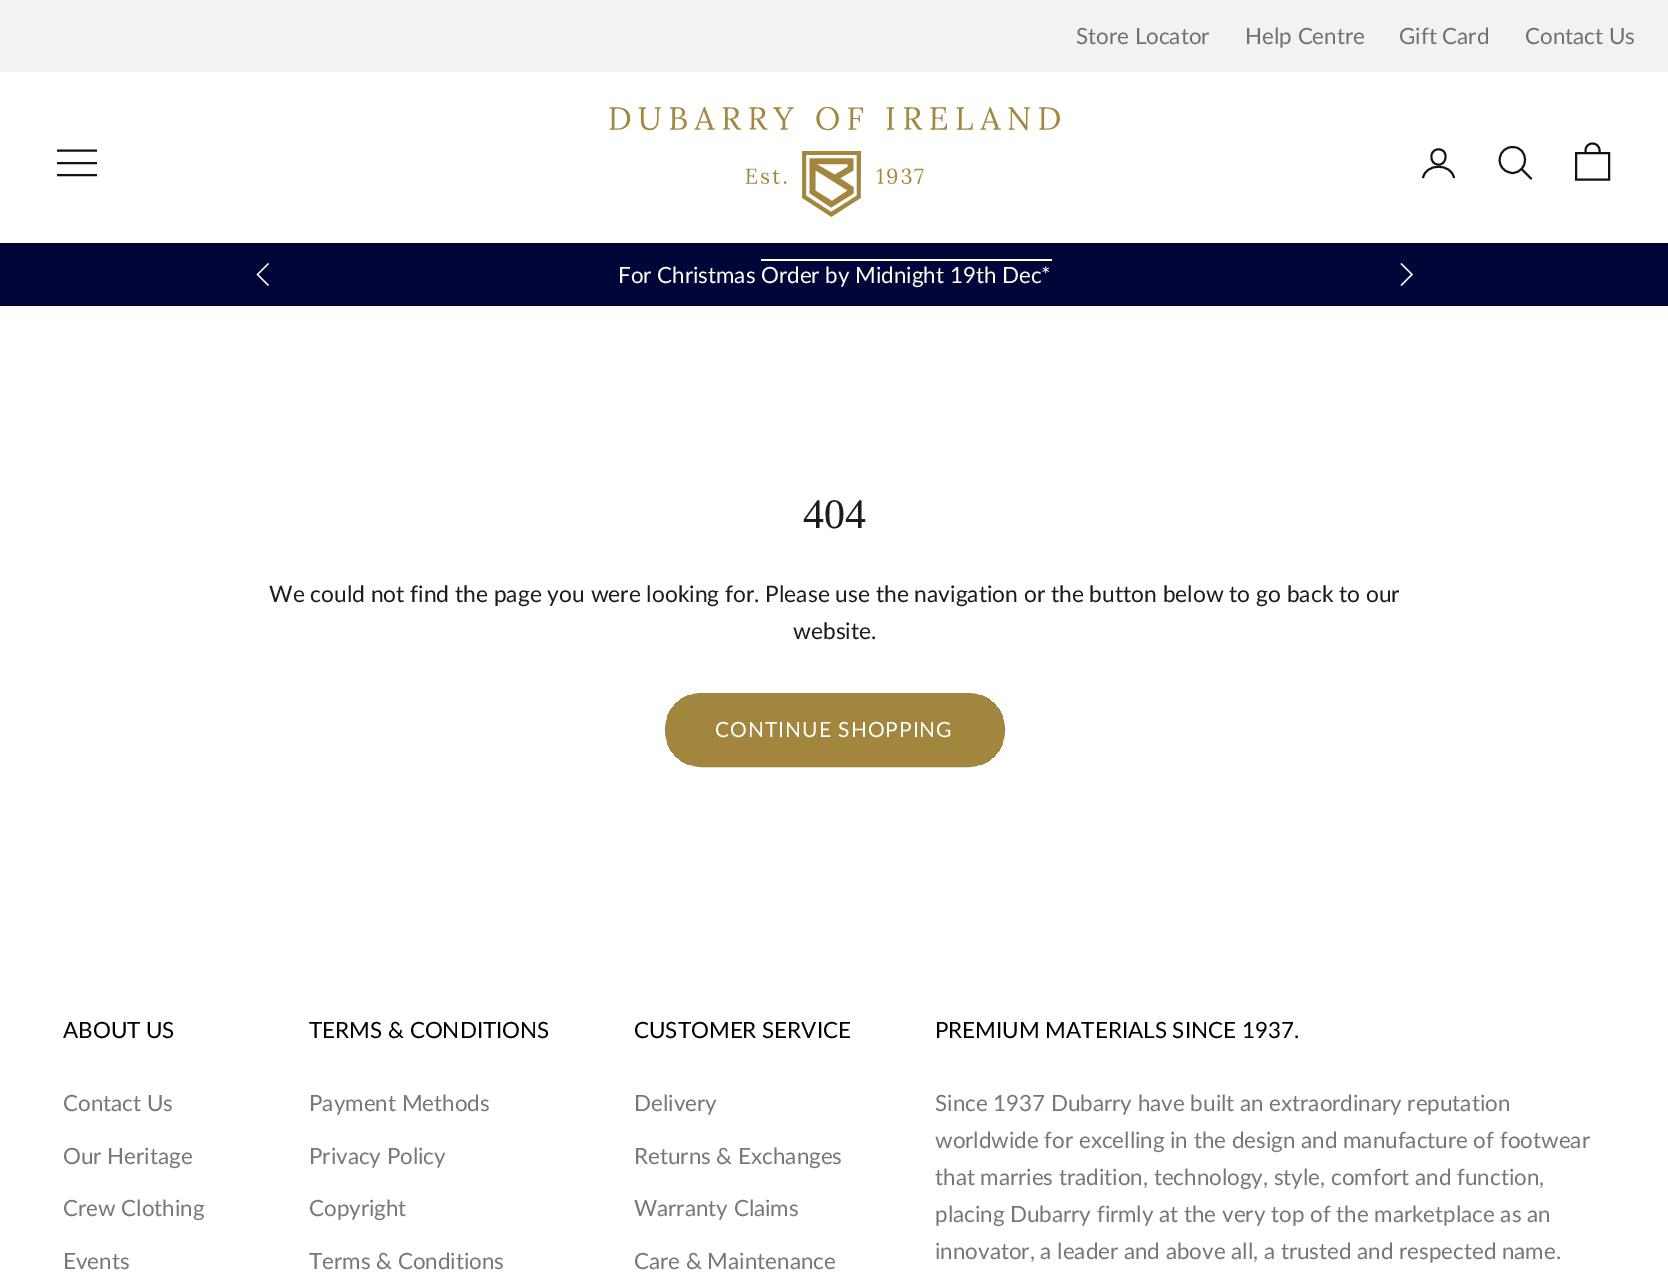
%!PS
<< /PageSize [1668 1284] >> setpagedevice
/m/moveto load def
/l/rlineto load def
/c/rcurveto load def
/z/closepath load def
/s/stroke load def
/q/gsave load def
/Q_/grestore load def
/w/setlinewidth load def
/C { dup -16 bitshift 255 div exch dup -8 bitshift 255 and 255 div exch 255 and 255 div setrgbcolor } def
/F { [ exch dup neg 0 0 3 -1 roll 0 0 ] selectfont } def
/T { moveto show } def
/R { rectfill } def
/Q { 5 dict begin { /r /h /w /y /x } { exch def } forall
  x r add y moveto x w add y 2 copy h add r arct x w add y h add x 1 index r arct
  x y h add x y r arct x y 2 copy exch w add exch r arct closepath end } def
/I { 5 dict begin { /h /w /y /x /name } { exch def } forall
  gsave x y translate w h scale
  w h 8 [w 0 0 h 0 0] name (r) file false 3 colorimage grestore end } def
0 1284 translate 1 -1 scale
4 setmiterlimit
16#FFFFFF C
0 0 1668 1284 R
16#F2F2F2 C
0 0 1668 72 R
/Lato-Regular 22.4 F
16#766F6F C
(Store Locator) 1076 44 T
(Help Centre) 1245 44 T
(Gift Card) 1399 44 T
(Contact Us) 1525 44 T
16#121212 C
1.9 w
2 setlinecap
58 175 m 38 0 l 58 163 m 38 0 l 58 150.5 m 38 0 l s
(1.rgb) 609 107 451 110 I
1 setlinecap
1 setlinejoin
1445.5 157 m -.5 11.5 -15.5 9.5 -14 -1.5 c 1 -9 15 -8 14 1.5 c z s
0 setlinecap
0 setlinejoin
1423 178 m 2.5 -15 28.5 -15 31 0 c s
1512.5 147 m -13 0 -18 17.5 -6.5 24 c 2 1 4.5 2 6.5 2 c 17 -1 16.5 -26 0 -26 c z s
1 setlinecap
1522 169.5 m 9 9 l s
0 setlinecap
1609 179.5 m 0 -26.5 l -33 0 l 0 26.5 l z 1585.5 152 m 0 -1.5 l 0 -4 3 -7 7 -7 c 4 0 7 3 7 7 c 0 1.5 l s
16#000738 C
0 243 1668 63 R
16#FFFFFF C
1.3 w
2 setlinecap
268 264 m -10.5 10.5 l 10.5 10.5 l s
761 259 291 2 R
(For Christmas Order by Midnight 19th Dec*) 618 283 T
1401.5 285 m 10.5 -10.5 l -10.5 -10.5 l s
/LiberationSerif-Regular 42 F
16#1C1C1C C
(404) 803 528 T
/Lato-Regular 22.75 F
(We could not find the page you were looking for. Please use the navigation or the button below to go back to our) 269 602 T
(website.) 793 639 T
q
665 693 340 74 37 Q clip newpath
16#A2863E C
667 695 336 70 R
Q_
16#A2863E C
2 w
0 setlinecap
666 694 338 72 36 Q s
/Lato-Regular 21 F
16#FFFFFF C
715 737 m 1 0 (CONTINUE SHOPPING) ashow
/Lato-Regular 22.4 F
16#000000 C
(ABOUT US) 63 1038 T
16#7B7676 C
(Contact Us) 63 1111 T
(Our Heritage) 63 1164 T
(Crew Clothing) 63 1216 T
(Events) 63 1269 T
16#000000 C
(TERMS & CONDITIONS) 309 1038 T
16#7B7676 C
(Payment Methods) 309 1111 T
(Privacy Policy) 309 1164 T
(Copyright) 309 1216 T
(Terms & Conditions) 309 1269 T
16#000000 C
(CUSTOMER SERVICE) 634 1038 T
16#7B7676 C
(Delivery) 634 1111 T
(Returns & Exchanges) 634 1164 T
(Warranty Claims) 634 1216 T
(Care & Maintenance) 634 1269 T
16#000000 C
(PREMIUM MATERIALS SINCE 1937.) 935 1038 T
16#7B7676 C
(Since 1937 Dubarry have built an extraordinary reputation) 935 1111 T
(worldwide for excelling in the design and manufacture of footwear) 935 1148 T
(that marries tradition, technology, style, comfort and function,) 935 1185 T
(placing Dubarry firmly at the very top of the marketplace as an) 935 1222 T
(innovator, a leader and above all, a trusted and respected name.) 935 1259 T
showpage
